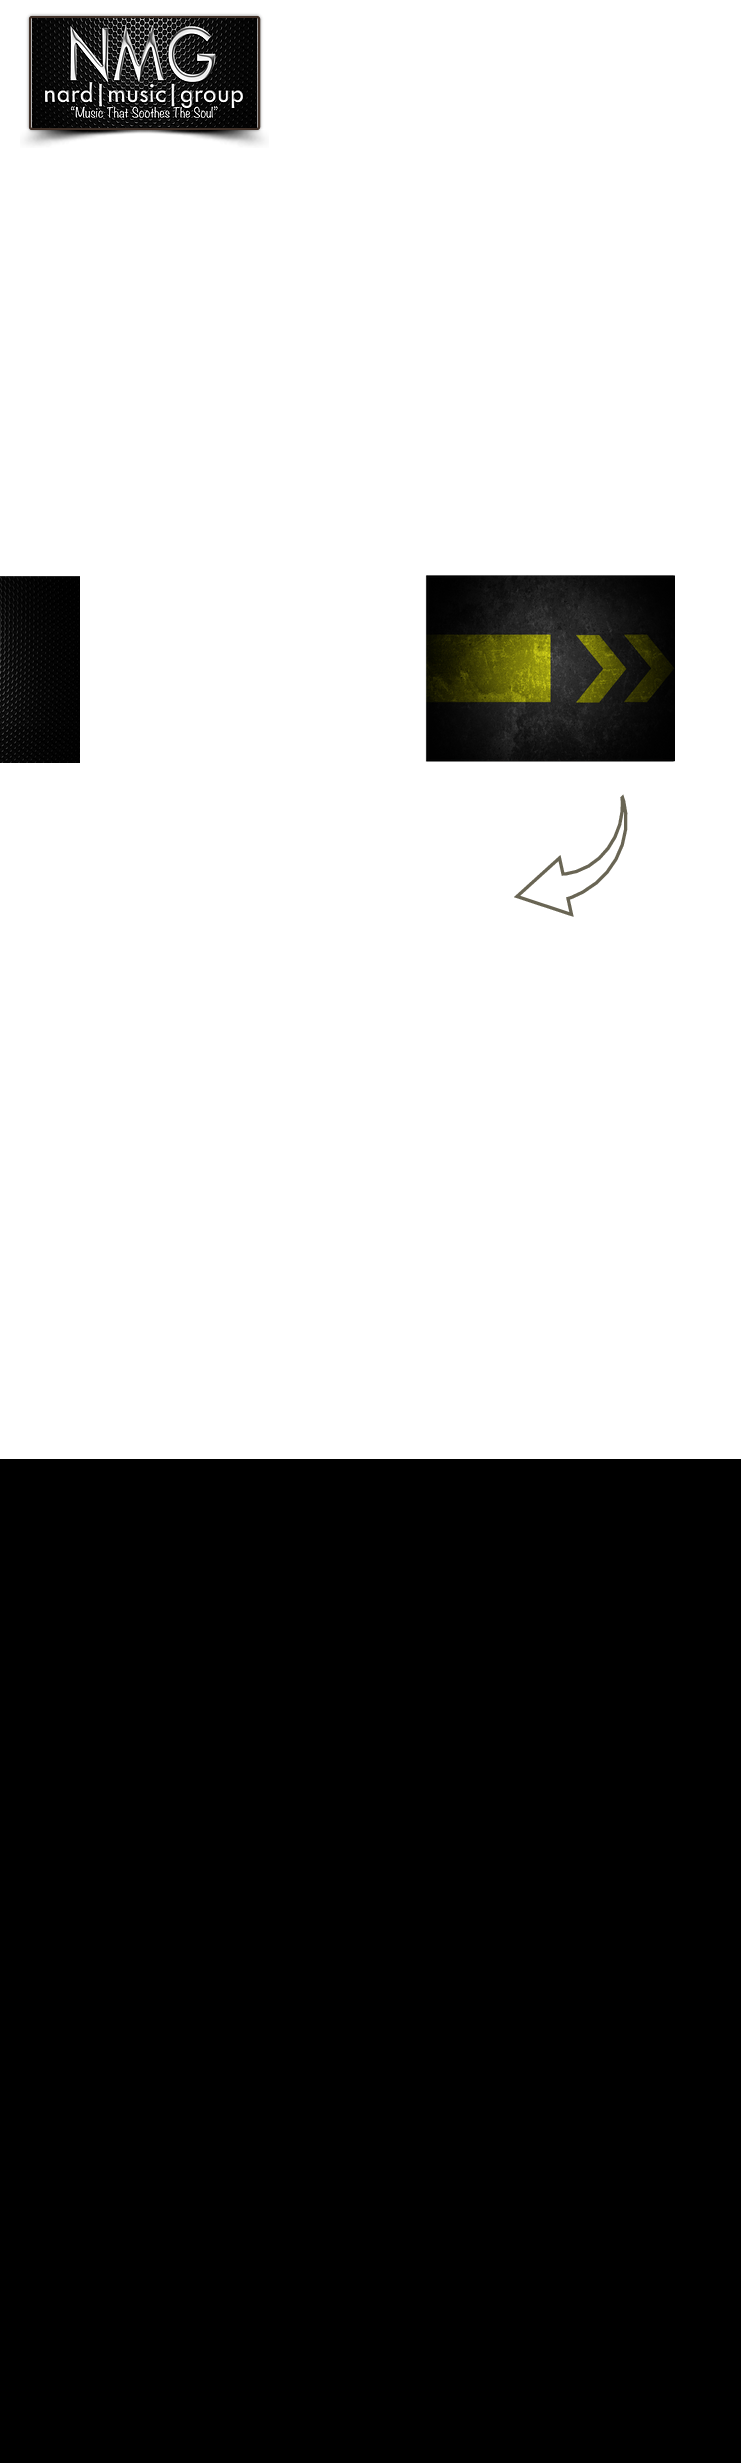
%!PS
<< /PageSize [741 2463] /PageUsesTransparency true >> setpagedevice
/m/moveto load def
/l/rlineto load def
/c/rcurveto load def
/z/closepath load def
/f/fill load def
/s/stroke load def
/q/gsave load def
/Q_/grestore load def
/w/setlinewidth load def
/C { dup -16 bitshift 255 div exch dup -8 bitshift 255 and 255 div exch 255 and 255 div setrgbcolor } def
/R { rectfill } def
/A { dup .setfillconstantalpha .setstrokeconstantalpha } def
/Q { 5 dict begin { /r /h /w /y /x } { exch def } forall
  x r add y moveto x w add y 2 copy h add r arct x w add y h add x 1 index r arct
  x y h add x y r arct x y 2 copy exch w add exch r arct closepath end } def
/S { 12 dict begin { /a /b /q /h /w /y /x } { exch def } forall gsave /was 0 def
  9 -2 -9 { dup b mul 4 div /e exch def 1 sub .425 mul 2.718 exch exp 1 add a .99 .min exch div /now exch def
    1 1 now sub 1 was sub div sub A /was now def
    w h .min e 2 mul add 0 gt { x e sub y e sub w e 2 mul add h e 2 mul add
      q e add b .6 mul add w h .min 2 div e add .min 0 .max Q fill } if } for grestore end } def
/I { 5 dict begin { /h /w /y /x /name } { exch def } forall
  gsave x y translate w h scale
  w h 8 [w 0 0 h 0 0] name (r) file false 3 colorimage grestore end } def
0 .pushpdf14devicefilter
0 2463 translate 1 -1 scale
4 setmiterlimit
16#000000 C
0 0 741 2463 R
16#FFFFFF C
0 0 741 1459 R
16#000000 C
29 16 231 114 3 1.5 .5 S
16#403027 C
30 17 229 112 2 Q q f Q_
2 w
s
(1.rgb) 31 18 227 110 I
(2.rgb) 20 130 154 18 I
(3.rgb) 127 130 142 18 I
(4.rgb) 0 576 80 187 I
(5.rgb) 425 575 250 187 I
16#696554 C
3 w
622.5 797.5 m -.5 .5 l 4 35.5 -21.5 73.5 -59 76 c -3.5 -16 l -42.5 38.5 l 54.5 18 l -3.5 -16 l 42 -13.5 68 -58 54.5 -101 c z s
.poppdf14devicefilter showpage
